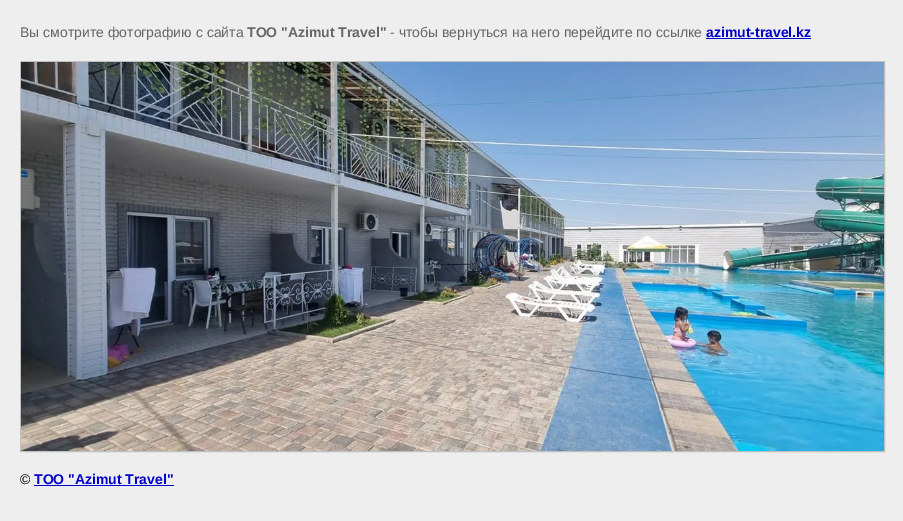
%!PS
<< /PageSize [903 521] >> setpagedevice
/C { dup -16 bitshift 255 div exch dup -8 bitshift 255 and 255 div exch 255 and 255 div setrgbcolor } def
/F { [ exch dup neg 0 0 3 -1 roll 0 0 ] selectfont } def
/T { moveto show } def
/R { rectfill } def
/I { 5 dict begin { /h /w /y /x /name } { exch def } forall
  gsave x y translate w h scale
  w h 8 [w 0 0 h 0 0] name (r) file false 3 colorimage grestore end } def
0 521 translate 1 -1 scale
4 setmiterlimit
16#EEEEEE C
0 0 903 521 R
/LiberationSans-Regular 14 F
16#666666 C
(Вы смотрите фотографию с сайта) 20 37 T
/LiberationSans-Bold 14 F
(ТОО "Azimut Travel") 247 37 T
/LiberationSans-Regular 14 F
(- чтобы вернуться на него перейдите по ссылке) 390 37 T
/LiberationSans-Bold 14 F
16#0000CC C
(azimut-travel.kz) 706 37 T
706 38 105 1 R
16#C0C0C0 C
20.5 61.5 864 390 rectstroke
(1.rgb) 21 62 863 389 I
/LiberationSans-Regular 14 F
16#000000 C
(©) 20 484 T
/LiberationSans-Bold 14 F
16#0000CC C
(ТОО "Azimut Travel") 34 484 T
34 485 140 1 R
showpage
